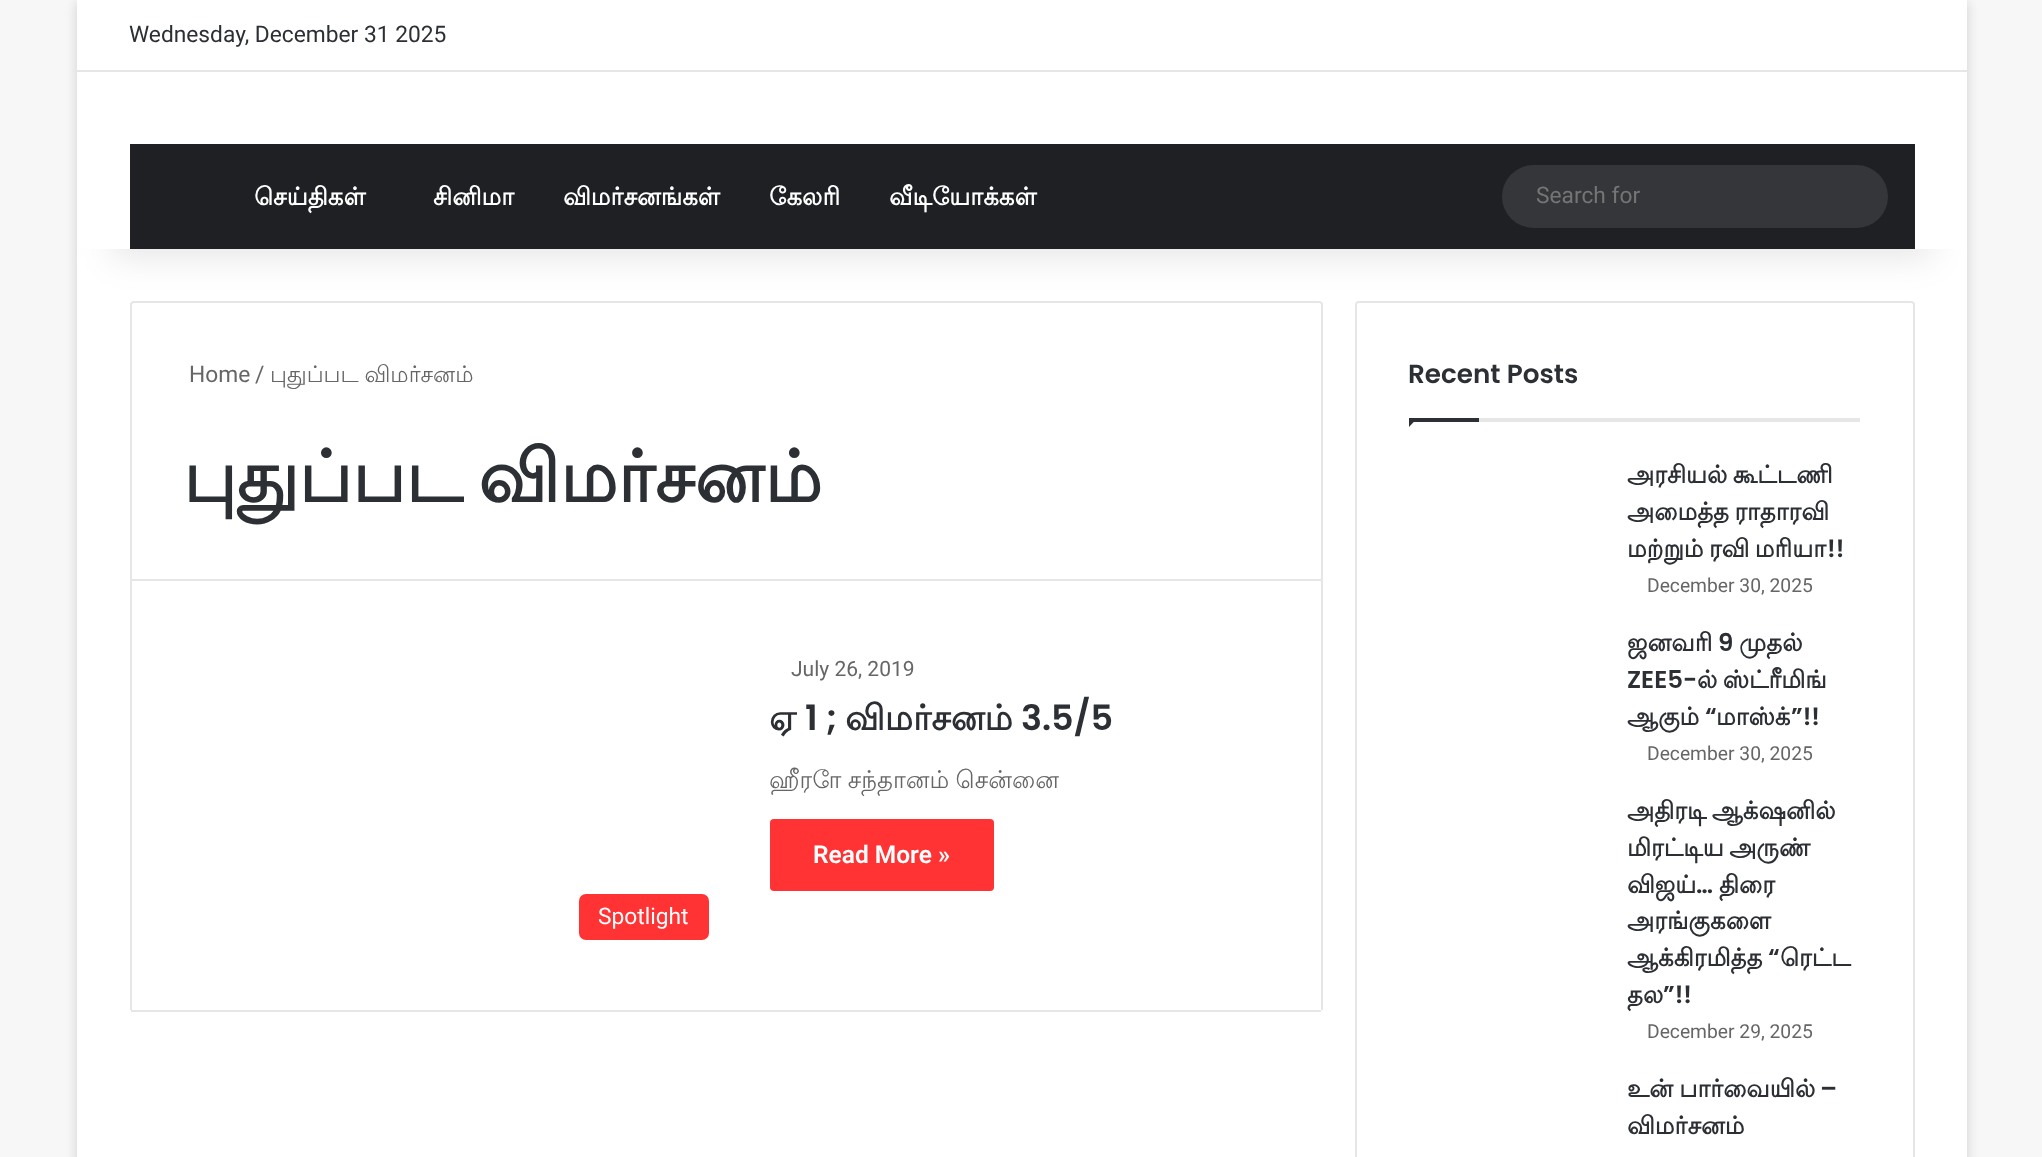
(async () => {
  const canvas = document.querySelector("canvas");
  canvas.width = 2042;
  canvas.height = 1157;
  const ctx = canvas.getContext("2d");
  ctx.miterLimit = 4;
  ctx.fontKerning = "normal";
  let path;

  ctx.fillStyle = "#f7f7f7";
  ctx.fillRect(0, 0, 2042, 1157);
  ctx.fillStyle = "rgba(171, 171, 171, 0.5)";
  ctx.filter = "blur(6px)";
  ctx.beginPath();
  ctx.rect(77, 2, 1890, 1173);
  ctx.fill();
  ctx.filter = "none";
  ctx.fillStyle = "#ffffff";
  ctx.fillRect(77, 249, 1890, 908);
  ctx.beginPath();
  ctx.roundRect(131, 302, 1191, 278, [3, 3, 0, 0]);
  ctx.strokeStyle = "#e6e6e6";
  ctx.lineWidth = 2;
  ctx.stroke();
  ctx.beginPath();
  ctx.roundRect(1356, 302, 558, 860, 3);
  ctx.stroke();
  ctx.fillStyle = "rgba(0, 0, 0, 0.1)";
  ctx.filter = "blur(17.5px)";
  ctx.beginPath();
  ctx.rect(112, 79, 1820, 178);
  ctx.fill();
  ctx.filter = "none";
  for (const [x, y, w, h, color] of [
    [77, 0, 1890, 249, "#ffffff"],
    [77, 70, 1890, 2, "#e6e6e6"],
    [130, 144, 1785, 105, "#1f2024"],
  ]) {
    ctx.fillStyle = color;
    ctx.fillRect(x, y, w, h);
  }
  ctx.fillStyle = "#35363a";
  ctx.beginPath();
  ctx.roundRect(1502, 165, 386, 63, 31.5);
  ctx.fill();
  for (const [x, y, w, h, color] of [
    [1321, 581, 2, 429, "#e6e6e6"],
    [131, 1010, 1190, 2, "#e6e6e6"],
    [130, 581, 2, 429, "#e6e6e6"],
  ]) {
    ctx.fillStyle = color;
    ctx.fillRect(x, y, w, h);
  }
  ctx.fillStyle = "#ff3333";
  ctx.beginPath();
  ctx.roundRect(770, 819, 224, 72, 4);
  ctx.fill();
  ctx.beginPath();
  ctx.roundRect(579, 894, 130, 46, 7);
  ctx.fill();
  ctx.fillStyle = "#e6e6e6";
  ctx.fillRect(1479, 418, 381, 4);
  ctx.fillStyle = "#2c2f34";
  path = new Path2D("M1409 418H1417.5L1409 427Z");
  ctx.fill(path);
  ctx.fillRect(1409, 418, 70, 4);
  ctx.font = "22.75px Roboto";
  ctx.fillText("Wednesday, December 31 2025", 129, 42);
  ctx.font = "bold 24.5px Lohit Tamil";
  ctx.fillStyle = "#ffffff";
  for (const [text, x, y] of [
    ["செய்திகள்", 254, 205],
    ["சினிமா", 433, 205],
    ["விமர்சனங்கள்", 563, 205],
    ["கேலரி", 769, 205],
    ["வீடியோக்கள்", 889, 205],
  ]) {
    ctx.fillText(text, x, y);
  }
  ctx.font = "22.75px Roboto";
  ctx.fillStyle = "#757575";
  ctx.fillText("Search for", 1536, 203);
  ctx.fillStyle = "#666666";
  ctx.fillText("Home", 189, 382);
  ctx.fillText("/", 255, 382);
  ctx.wordSpacing = "-1px";
  ctx.font = "22.75px Lohit Tamil";
  ctx.fillText("புதுப்பட விமர்சனம்", 270, 382);
  ctx.wordSpacing = "-6px";
  ctx.font = "bold 71.75px Lohit Tamil";
  ctx.fillStyle = "#2c2f34";
  ctx.fillText("புதுப்பட விமர்சனம்", 183, 502);
  ctx.wordSpacing = "0px";
  ctx.font = "21px Roboto";
  ctx.fillStyle = "#666666";
  ctx.fillText("July 26, 2019", 791, 676);
  ctx.font = "bold 35px Lohit Tamil";
  ctx.fillStyle = "#2c2f34";
  ctx.fillText("ஏ", 769, 730);
  ctx.font = "600 35px Poppins";
  ctx.fillText("1 ;", 805, 730);
  ctx.font = "bold 35px Lohit Tamil";
  ctx.fillText("விமர்சனம்", 845, 730);
  ctx.font = "600 35px Poppins";
  ctx.fillText("3.5/5", 1021, 730);
  ctx.wordSpacing = "-1px";
  ctx.font = "24.5px Lohit Tamil";
  ctx.fillStyle = "#666666";
  ctx.fillText("ஹீரோ சந்தானம் சென்னை", 769, 788);
  ctx.wordSpacing = "0px";
  ctx.font = "600 24.5px Roboto";
  ctx.fillStyle = "#ffffff";
  ctx.fillText("Read More »", 813, 863);
  ctx.font = "22.75px Roboto";
  ctx.fillText("Spotlight", 598, 924);
  ctx.font = "600 26.25px Poppins";
  ctx.fillStyle = "#2c2f34";
  ctx.fillText("Recent Posts", 1408, 383);
  ctx.wordSpacing = "-2px";
  ctx.font = "bold 24.5px Lohit Tamil";
  for (const [text, x, y] of [
    ["அரசியல் கூட்டணி", 1627, 483],
    ["அமைத்த ராதாரவி", 1627, 520],
    ["மற்றும் ரவி மரியா", 1627, 557],
  ]) {
    ctx.fillText(text, x, y);
  }
  ctx.wordSpacing = "0px";
  ctx.font = "600 24.5px Poppins";
  ctx.fillText("!!", 1827, 557);
  ctx.font = "19.25px Roboto";
  ctx.fillStyle = "#666666";
  ctx.fillText("December 30, 2025", 1647, 592);
  ctx.font = "bold 24.5px Lohit Tamil";
  ctx.fillStyle = "#2c2f34";
  ctx.fillText("ஜனவரி", 1627, 651);
  ctx.font = "600 24.5px Poppins";
  ctx.fillText("9", 1718, 651);
  ctx.font = "bold 24.5px Lohit Tamil";
  ctx.fillText("முதல்", 1739, 651);
  ctx.font = "600 24.5px Poppins";
  ctx.fillText("ZEE5-", 1627, 688);
  ctx.wordSpacing = "-2px";
  ctx.font = "bold 24.5px Lohit Tamil";
  ctx.fillText("ல் ஸ்ட்ரீமிங்", 1697, 688);
  ctx.wordSpacing = "0px";
  ctx.fillText("ஆகும்", 1627, 725);
  ctx.font = "600 24.5px Poppins";
  ctx.fillText("“", 1705, 725);
  ctx.font = "bold 24.5px Lohit Tamil";
  ctx.fillText("மாஸ்க்", 1716, 725);
  ctx.font = "600 24.5px Poppins";
  ctx.fillText("”!!", 1791, 725);
  ctx.font = "19.25px Roboto";
  ctx.fillStyle = "#666666";
  ctx.fillText("December 30, 2025", 1647, 760);
  ctx.wordSpacing = "-2px";
  ctx.font = "bold 24.5px Lohit Tamil";
  ctx.fillStyle = "#2c2f34";
  ctx.fillText("அதிரடி ஆக்‌ஷனில்", 1627, 819);
  ctx.fillText("மிரட்டிய அருண்", 1627, 856);
  ctx.wordSpacing = "0px";
  ctx.fillText("விஜய்", 1627, 893);
  ctx.font = "600 24.5px Poppins";
  ctx.fillText("…", 1696, 893);
  ctx.font = "bold 24.5px Lohit Tamil";
  for (const [text, x, y] of [
    ["திரை", 1719, 893],
    ["அரங்குகளை", 1627, 929],
    ["ஆக்கிரமித்த", 1627, 966],
  ]) {
    ctx.fillText(text, x, y);
  }
  ctx.font = "600 24.5px Poppins";
  ctx.fillText("“", 1768, 966);
  ctx.font = "bold 24.5px Lohit Tamil";
  ctx.fillText("ரெட்ட", 1780, 966);
  ctx.fillText("தல", 1627, 1003);
  ctx.font = "600 24.5px Poppins";
  ctx.fillText("”!!", 1663, 1003);
  ctx.font = "19.25px Roboto";
  ctx.fillStyle = "#666666";
  ctx.fillText("December 29, 2025", 1647, 1038);
  ctx.wordSpacing = "-1px";
  ctx.font = "bold 24.5px Lohit Tamil";
  ctx.fillStyle = "#2c2f34";
  ctx.fillText("உன் பார்வையில்", 1627, 1097);
  ctx.wordSpacing = "0px";
  ctx.font = "600 24.5px Poppins";
  ctx.fillText("–", 1820, 1097);
  ctx.font = "bold 24.5px Lohit Tamil";
  ctx.fillText("விமர்சனம்", 1627, 1134);
})();
